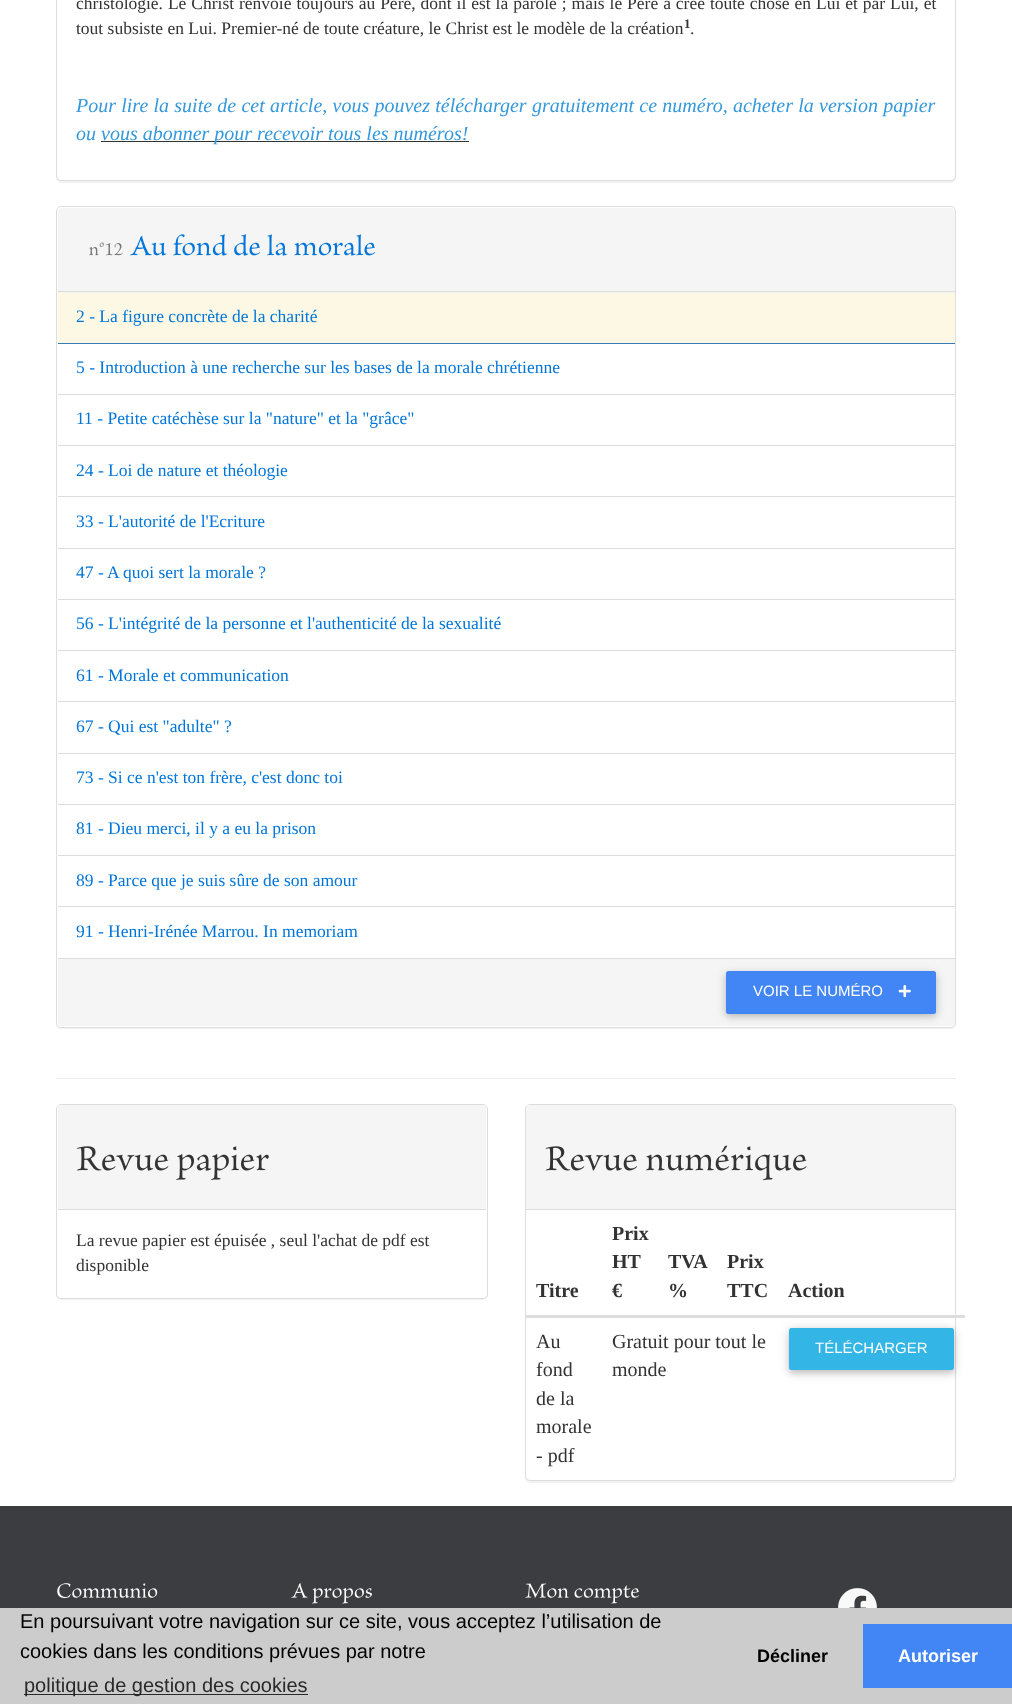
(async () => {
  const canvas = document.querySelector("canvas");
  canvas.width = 1012;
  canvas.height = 1704;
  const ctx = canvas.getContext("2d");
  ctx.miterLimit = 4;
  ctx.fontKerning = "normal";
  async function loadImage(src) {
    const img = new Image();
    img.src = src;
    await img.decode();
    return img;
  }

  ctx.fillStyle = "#ffffff";
  ctx.fillRect(0, 0, 1012, 1704);
  ctx.fillStyle = "rgba(0, 0, 0, 0.05)";
  ctx.filter = "blur(0.5px)";
  ctx.beginPath();
  ctx.roundRect(56, -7, 900, 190, 5);
  ctx.fill();
  ctx.filter = "none";
  ctx.fillStyle = "#ffffff";
  ctx.beginPath();
  ctx.roundRect(56.5, -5.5, 899, 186, 4.5);
  ctx.fill();
  ctx.strokeStyle = "#dddddd";
  ctx.stroke();
  ctx.fillStyle = "#333333";
  ctx.fillRect(101, 141, 368, 1);
  ctx.fillStyle = "rgba(0, 0, 0, 0.05)";
  ctx.filter = "blur(0.5px)";
  ctx.beginPath();
  ctx.roundRect(56, 208, 900, 821, 5);
  ctx.fill();
  ctx.filter = "none";
  ctx.fillStyle = "#ffffff";
  ctx.beginPath();
  ctx.roundRect(56.5, 206.5, 899, 821, 4.5);
  ctx.fill();
  ctx.stroke();
  ctx.fillStyle = "#f5f5f5";
  ctx.beginPath();
  ctx.roundRect(58, 208, 897, 85, [4, 4, 0, 0]);
  ctx.fill();
  ctx.fillStyle = "#dddddd";
  ctx.fillRect(58, 291, 897, 1);
  ctx.drawImage(await loadImage("img/1.png"), 89, 242, 34, 14);
  ctx.drawImage(await loadImage("img/2.png"), 129, 234, 247, 22);
  for (const [x, y, w, h, color] of [
    [58, 293, 897, 50, "#fcf8e3"],
    [58, 343, 897, 1, "#337ab7"],
    [58, 394, 897, 1, "#dddddd"],
    [58, 445, 897, 1, "#dddddd"],
    [58, 496, 897, 1, "#dddddd"],
    [58, 548, 897, 1, "#dddddd"],
    [58, 599, 897, 1, "#dddddd"],
    [58, 650, 897, 1, "#dddddd"],
    [58, 701, 897, 1, "#dddddd"],
    [58, 753, 897, 1, "#dddddd"],
    [58, 804, 897, 1, "#dddddd"],
    [58, 855, 897, 1, "#dddddd"],
    [58, 906, 897, 1, "#dddddd"],
    [58, 958, 897, 1, "#dddddd"],
  ]) {
    ctx.fillStyle = color;
    ctx.fillRect(x, y, w, h);
  }
  ctx.fillStyle = "#f5f5f5";
  ctx.beginPath();
  ctx.roundRect(58, 959, 897, 67, [0, 0, 4, 4]);
  ctx.fill();
  ctx.fillStyle = "rgba(0, 0, 0, 0.12)";
  ctx.filter = "blur(6px)";
  ctx.beginPath();
  ctx.roundRect(726, 974, 210, 42, 2.5);
  ctx.fill();
  ctx.filter = "none";
  ctx.fillStyle = "rgba(0, 0, 0, 0.16)";
  ctx.filter = "blur(3px)";
  ctx.beginPath();
  ctx.roundRect(726, 974, 210, 42, 2.5);
  ctx.fill();
  ctx.filter = "none";
  ctx.fillStyle = "#4285f4";
  ctx.beginPath();
  ctx.roundRect(726, 971, 210, 43, 2.5);
  ctx.fill();
  ctx.drawImage(await loadImage("img/3.png"), 898, 985, 13, 13);
  ctx.fillStyle = "#eeeeee";
  ctx.fillRect(56, 1078, 900, 1);
  ctx.fillStyle = "rgba(0, 0, 0, 0.05)";
  ctx.filter = "blur(0.5px)";
  ctx.beginPath();
  ctx.roundRect(56, 1105, 432, 195, 5);
  ctx.fill();
  ctx.filter = "none";
  ctx.fillStyle = "#ffffff";
  ctx.beginPath();
  ctx.roundRect(56.5, 1104.5, 431, 194, 4.5);
  ctx.fill();
  ctx.stroke();
  ctx.fillStyle = "#f5f5f5";
  ctx.beginPath();
  ctx.roundRect(58, 1105, 428, 105, [4, 4, 0, 0]);
  ctx.fill();
  ctx.fillStyle = "#dddddd";
  ctx.fillRect(58, 1209, 428, 1);
  ctx.drawImage(await loadImage("img/4.png"), 76, 1146, 193, 34);
  ctx.fillStyle = "rgba(0, 0, 0, 0.05)";
  ctx.filter = "blur(0.5px)";
  ctx.beginPath();
  ctx.roundRect(525, 1105, 431, 378, 5);
  ctx.fill();
  ctx.filter = "none";
  ctx.fillStyle = "#ffffff";
  ctx.beginPath();
  ctx.roundRect(525.5, 1104.5, 430, 376, 4.5);
  ctx.fill();
  ctx.stroke();
  ctx.fillStyle = "#f5f5f5";
  ctx.beginPath();
  ctx.roundRect(526, 1105, 429, 105, [4, 4, 0, 0]);
  ctx.fill();
  ctx.fillStyle = "#dddddd";
  ctx.fillRect(526, 1209, 429, 1);
  ctx.drawImage(await loadImage("img/5.png"), 545, 1145, 262, 36);
  ctx.fillRect(525, 1315, 440, 3);
  ctx.fillStyle = "rgba(0, 0, 0, 0.12)";
  ctx.filter = "blur(6px)";
  ctx.beginPath();
  ctx.roundRect(789, 1330, 165, 43, 2.5);
  ctx.fill();
  ctx.filter = "none";
  ctx.fillStyle = "rgba(0, 0, 0, 0.16)";
  ctx.filter = "blur(3px)";
  ctx.beginPath();
  ctx.roundRect(789, 1330, 165, 43, 2.5);
  ctx.fill();
  ctx.filter = "none";
  ctx.fillStyle = "#33b5e5";
  ctx.beginPath();
  ctx.roundRect(789, 1328, 165, 42, 2.5);
  ctx.fill();
  ctx.fillStyle = "#3c3d41";
  ctx.fillRect(0, 1506, 1012, 102);
  ctx.drawImage(await loadImage("img/6.png"), 57, 1583, 101, 15);
  ctx.drawImage(await loadImage("img/7.png"), 291, 1583, 81, 21);
  ctx.drawImage(await loadImage("img/8.png"), 525, 1583, 115, 21);
  ctx.drawImage(await loadImage("img/9.png"), 838, 1588, 39, 20);
  for (const [x, y, w, h, color] of [
    [0, 1608, 1012, 96, "#cccccc"],
    [24, 1694, 284, 1, "#292929"],
    [863, 1624, 149, 64, "#4285f4"],
  ]) {
    ctx.fillStyle = color;
    ctx.fillRect(x, y, w, h);
  }
  ctx.wordSpacing = "0.55px";
  ctx.font = "17.5px Liberation Serif";
  ctx.fillStyle = "#333333";
  ctx.fillText("christologie. Le Christ renvoie toujours au Père, dont il est la parole ; mais le Père a créé toute chose en Lui et par Lui, et", 76, 9);
  ctx.wordSpacing = "0px";
  ctx.fillText("tout subsiste en Lui. Premier-né de toute créature, le Christ est le modèle de la création", 76, 34);
  ctx.font = "bold 13px Liberation Serif";
  ctx.fillText("1", 684, 28);
  ctx.font = "17.5px Liberation Serif";
  ctx.fillText(".", 690, 34);
  ctx.wordSpacing = "0.25px";
  ctx.font = "italic 20px Liberation Serif";
  ctx.fillStyle = "#3498db";
  ctx.fillText("Pour lire la suite de cet article, vous pouvez télécharger gratuitement ce numéro, acheter la version papier", 76, 112);
  ctx.wordSpacing = "0px";
  ctx.fillText("ou", 76, 140);
  ctx.fillText("vous abonner pour recevoir tous les numéros!", 101, 140);
  ctx.font = "17.5px Liberation Serif";
  ctx.fillStyle = "#0275d8";
  for (const [text, x, y] of [
    ["2 - La figure concrète de la charité", 76, 322],
    ["5 - Introduction à une recherche sur les bases de la morale chrétienne", 76, 373],
    ["11 - Petite catéchèse sur la \"nature\" et la \"grâce\"", 76, 424],
    ["24 - Loi de nature et théologie", 76, 476],
    ["33 - L'autorité de l'Ecriture", 76, 527],
    ["47 -", 76, 578],
    ["A quoi sert la morale ?", 107, 578],
    ["56 - L'intégrité de la personne et l'authenticité de la sexualité", 76, 629],
    ["61 - Morale et communication", 76, 681],
    ["67 - Qui est \"adulte\" ?", 76, 732],
    ["73 - Si ce n'est ton frère, c'est donc toi", 76, 783],
    ["81 - Dieu merci, il y a eu la prison", 76, 834],
    ["89 - Parce que je suis sûre de son amour", 76, 886],
    ["91 - Henri-Irénée Marrou. In memoriam", 76, 937],
  ]) {
    ctx.fillText(text, x, y);
  }
  ctx.font = "15px Liberation Sans";
  ctx.fillStyle = "#ffffff";
  ctx.fillText("VOIR LE NUMÉRO", 753, 996);
  ctx.font = "17.5px Liberation Serif";
  ctx.fillStyle = "#333333";
  ctx.fillText("La revue papier est épuisée , seul l'achat de pdf est", 76, 1246);
  ctx.fillText("disponible", 76, 1271);
  ctx.font = "bold 20px Liberation Serif";
  for (const [text, x, y] of [
    ["Titre", 536, 1297],
    ["Prix", 612, 1240],
    ["HT", 612, 1268],
    ["€", 612, 1297],
    ["TVA", 668, 1268],
    ["%", 668, 1297],
    ["Prix", 727, 1268],
    ["TTC", 727, 1297],
    ["Action", 788, 1297],
  ]) {
    ctx.fillText(text, x, y);
  }
  ctx.font = "20px Liberation Serif";
  for (const [text, x, y] of [
    ["Au", 536, 1348],
    ["fond", 536, 1376],
    ["de la", 536, 1405],
    ["morale", 536, 1433],
    ["- pdf", 536, 1462],
    ["Gratuit pour tout le", 612, 1348],
    ["monde", 612, 1376],
  ]) {
    ctx.fillText(text, x, y);
  }
  ctx.font = "15px Liberation Sans";
  ctx.fillStyle = "#ffffff";
  ctx.fillText("TÉLÉCHARGER", 815, 1353);
  ctx.font = "20px Liberation Sans";
  ctx.fillStyle = "#000000";
  ctx.fillText("En poursuivant votre navigation sur ce site, vous acceptez l’utilisation de", 20, 1628);
  ctx.fillText("cookies dans les conditions prévues par notre", 20, 1658);
  ctx.fillStyle = "#292929";
  ctx.fillText("politique de gestion des cookies", 24, 1692);
  ctx.font = "bold 18px Liberation Sans";
  ctx.fillStyle = "#000000";
  ctx.fillText("Décliner", 757, 1662);
  ctx.fillStyle = "#ffffff";
  ctx.fillText("Autoriser", 898, 1662);
})();
